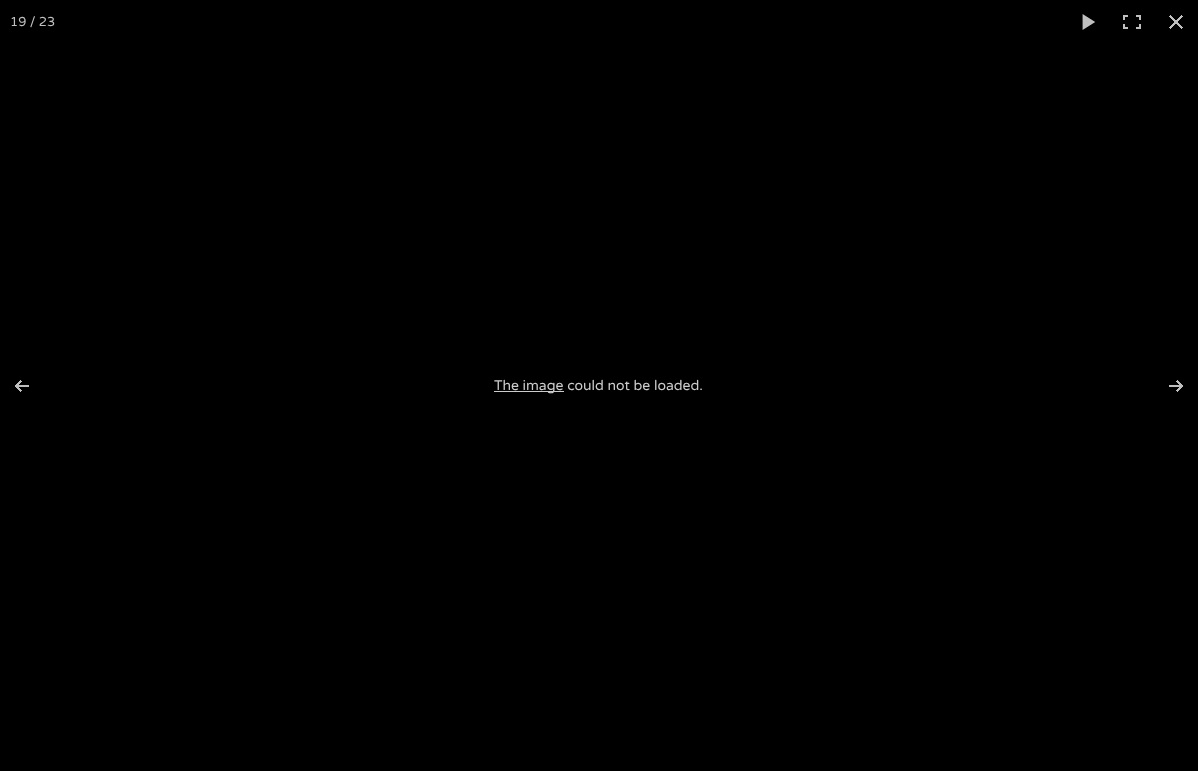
(async () => {
  const canvas = document.querySelector("canvas");
  canvas.width = 1198;
  canvas.height = 771;
  const ctx = canvas.getContext("2d");
  ctx.miterLimit = 4;
  ctx.fontKerning = "normal";
  async function loadImage(src) {
    const img = new Image();
    img.src = src;
    await img.decode();
    return img;
  }

  ctx.fillStyle = "#000000";
  ctx.fillRect(0, 0, 1198, 771);
  ctx.drawImage(await loadImage("img/1.png"), 1082, 14, 13, 16);
  ctx.drawImage(await loadImage("img/2.png"), 1123, 15, 18, 14);
  ctx.drawImage(await loadImage("img/3.png"), 1169, 15, 14, 14);
  ctx.drawImage(await loadImage("img/4.png"), 15, 380, 14, 12);
  ctx.drawImage(await loadImage("img/5.png"), 1169, 380, 14, 12);
  ctx.fillStyle = "#cccccc";
  ctx.fillRect(494, 391, 70, 1);
  ctx.font = "13px Varela Round";
  ctx.fillStyle = "#bfbfbf";
  ctx.fillText("19 / 23", 10, 26);
  ctx.font = "14px Varela Round";
  ctx.fillStyle = "#cccccc";
  ctx.fillText("The image could not be loaded.", 494, 390);
})();
